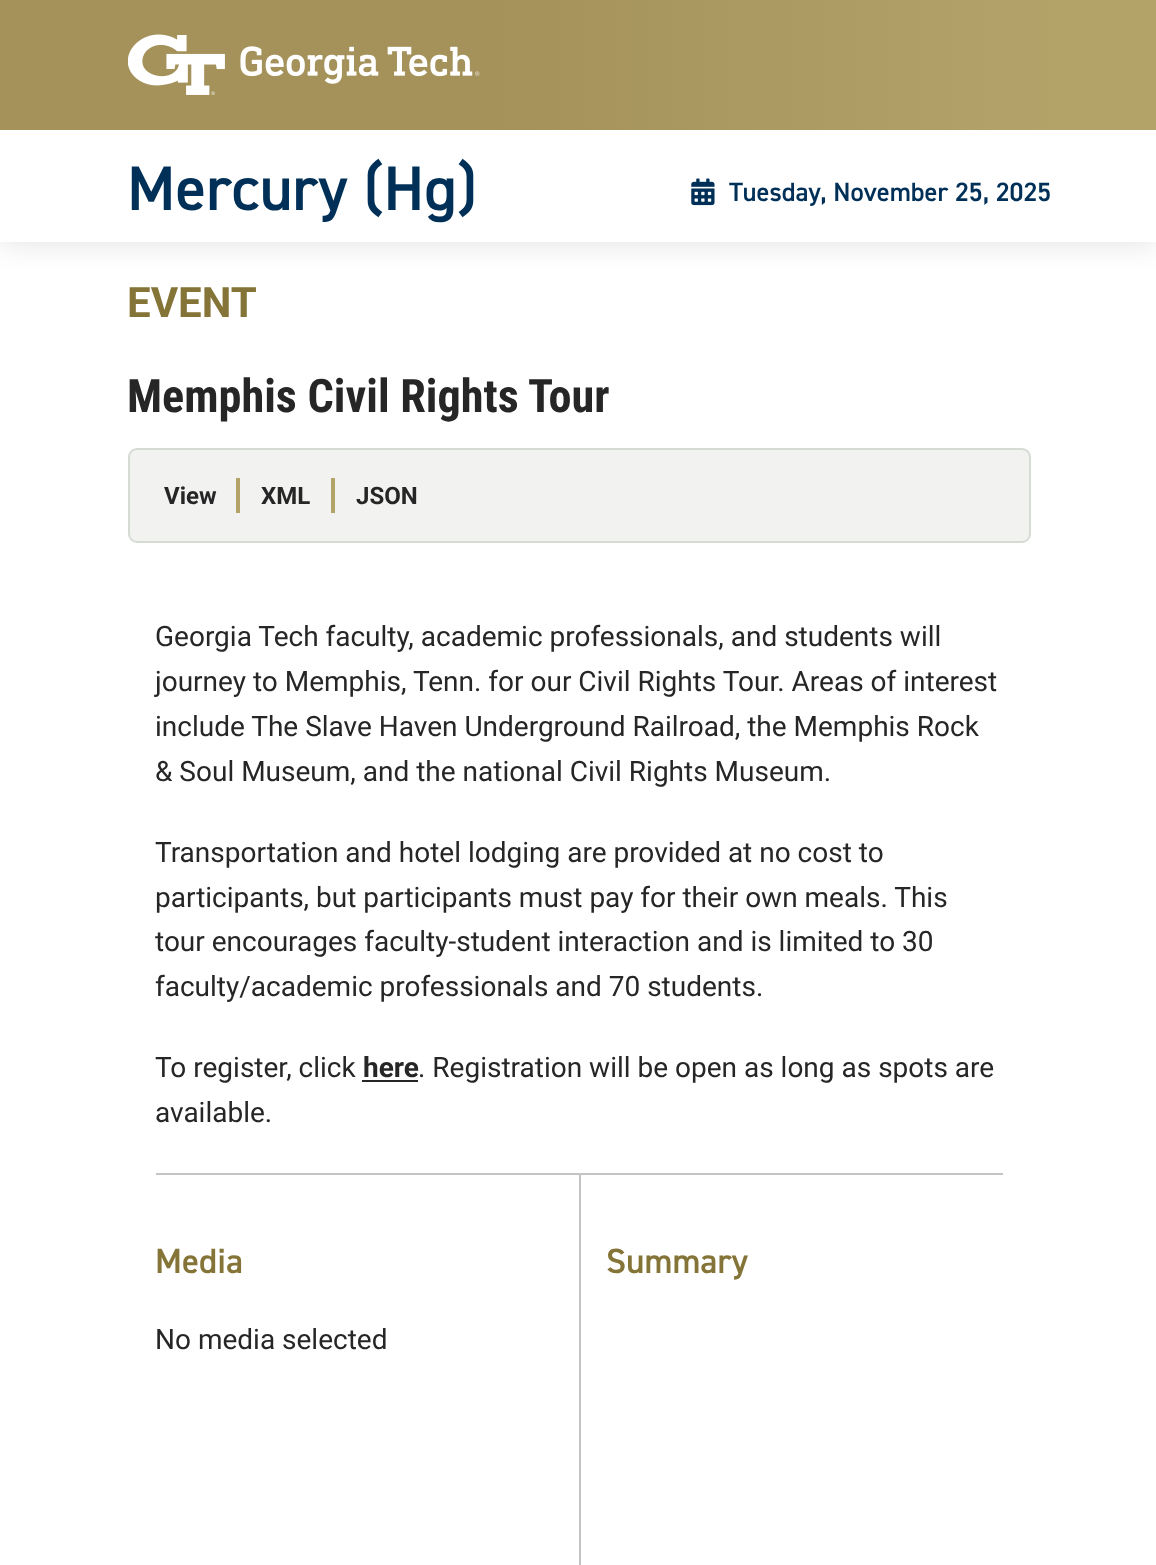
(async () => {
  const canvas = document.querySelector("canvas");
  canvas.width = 1156;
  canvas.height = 1565;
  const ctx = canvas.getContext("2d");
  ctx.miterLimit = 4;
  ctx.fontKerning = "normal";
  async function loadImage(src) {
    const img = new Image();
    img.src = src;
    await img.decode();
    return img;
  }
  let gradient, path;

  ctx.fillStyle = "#ffffff";
  ctx.fillRect(0, 0, 1156, 1565);
  ctx.save();
  path = new Path2D("M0 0H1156V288H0ZM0 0H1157V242H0Z");
  ctx.clip(path, "evenodd");
  ctx.fillStyle = "rgba(0, 0, 0, 0.1)";
  ctx.filter = "blur(14px)";
  ctx.beginPath();
  ctx.rect(0, 4, 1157, 241);
  ctx.fill();
  ctx.filter = "none";
  ctx.restore();
  ctx.fillStyle = "#a4925a";
  ctx.fillRect(0, 0, 501, 130);
  ctx.fillStyle = "#b3a369";
  ctx.fillRect(1052, 0, 104, 130);
  ctx.drawImage(await loadImage("img/1.png"), 128, 34, 352, 61);
  gradient = ctx.createLinearGradient(501, 65, 1052, 65);
  gradient.addColorStop(0, "#a4925a");
  gradient.addColorStop(1, "#b3a369");
  ctx.fillStyle = gradient;
  ctx.fillRect(501, 0, 551, 130);
  ctx.drawImage(await loadImage("img/2.png"), 691, 178, 24, 28);
  ctx.fillStyle = "#f2f3f1";
  ctx.beginPath();
  ctx.roundRect(129, 449, 901, 93, 8);
  ctx.fill();
  ctx.strokeStyle = "#d6dbd4";
  ctx.lineWidth = 2;
  ctx.stroke();
  for (const [x, y, w, h, color] of [
    [236, 478, 4, 35, "#b3a369"],
    [331, 478, 4, 35, "#b3a369"],
    [362, 1080, 56, 2, "#262626"],
    [156, 1173, 847, 2, "#c4c4c4"],
    [579, 1174, 2, 391, "#c4c4c4"],
  ]) {
    ctx.fillStyle = color;
    ctx.fillRect(x, y, w, h);
  }
  ctx.font = "600 63px 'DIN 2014'";
  ctx.fillStyle = "#003057";
  ctx.fillText("Mercury (Hg)", 127, 210);
  ctx.font = "600 26.6px 'DIN 2014'";
  ctx.fillText("Tuesday, November 25, 2025", 729, 201);
  ctx.font = "bold 42px Roboto";
  ctx.fillStyle = "#857437";
  ctx.fillText("EVENT", 127, 317);
  ctx.font = "bold 46.25px Roboto Condensed";
  ctx.fillStyle = "#262626";
  ctx.fillText("Memphis Civil Rights Tour", 127, 412);
  ctx.font = "bold 24px Roboto";
  for (const [text, x, y] of [
    ["View", 164, 504],
    ["XML", 261, 504],
    ["JSON", 356, 504],
  ]) {
    ctx.fillText(text, x, y);
  }
  ctx.font = "28px Roboto";
  for (const [text, x, y] of [
    ["Georgia Tech faculty, academic professionals, and students will", 155, 646],
    ["journey to Memphis, Tenn. for our Civil Rights Tour. Areas of interest", 155, 691],
    ["include The Slave Haven Underground Railroad, the Memphis Rock", 155, 736],
    ["& Soul Museum, and the national Civil Rights Museum.", 155, 781],
    ["Transportation and hotel lodging are provided at no cost to", 155, 862],
    ["participants, but participants must pay for their own meals. This", 155, 907],
    ["tour encourages faculty-student interaction and is limited to 30", 155, 951],
    ["faculty/academic professionals and 70 students.", 155, 996],
    ["To register, click", 155, 1077],
  ]) {
    ctx.fillText(text, x, y);
  }
  ctx.font = "bold 28px Roboto";
  ctx.fillText("here", 363, 1077);
  ctx.font = "28px Roboto";
  ctx.fillText(". Registration will be open as long as spots are", 418, 1077);
  ctx.fillText("available.", 155, 1122);
  ctx.font = "600 35px 'DIN 2014'";
  ctx.fillStyle = "#857437";
  ctx.fillText("Media", 155, 1273);
  ctx.font = "28px Roboto";
  ctx.fillStyle = "#262626";
  ctx.fillText("No media selected", 155, 1349);
  ctx.font = "600 35px 'DIN 2014'";
  ctx.fillStyle = "#857437";
  ctx.fillText("Summary", 606, 1273);
})();
